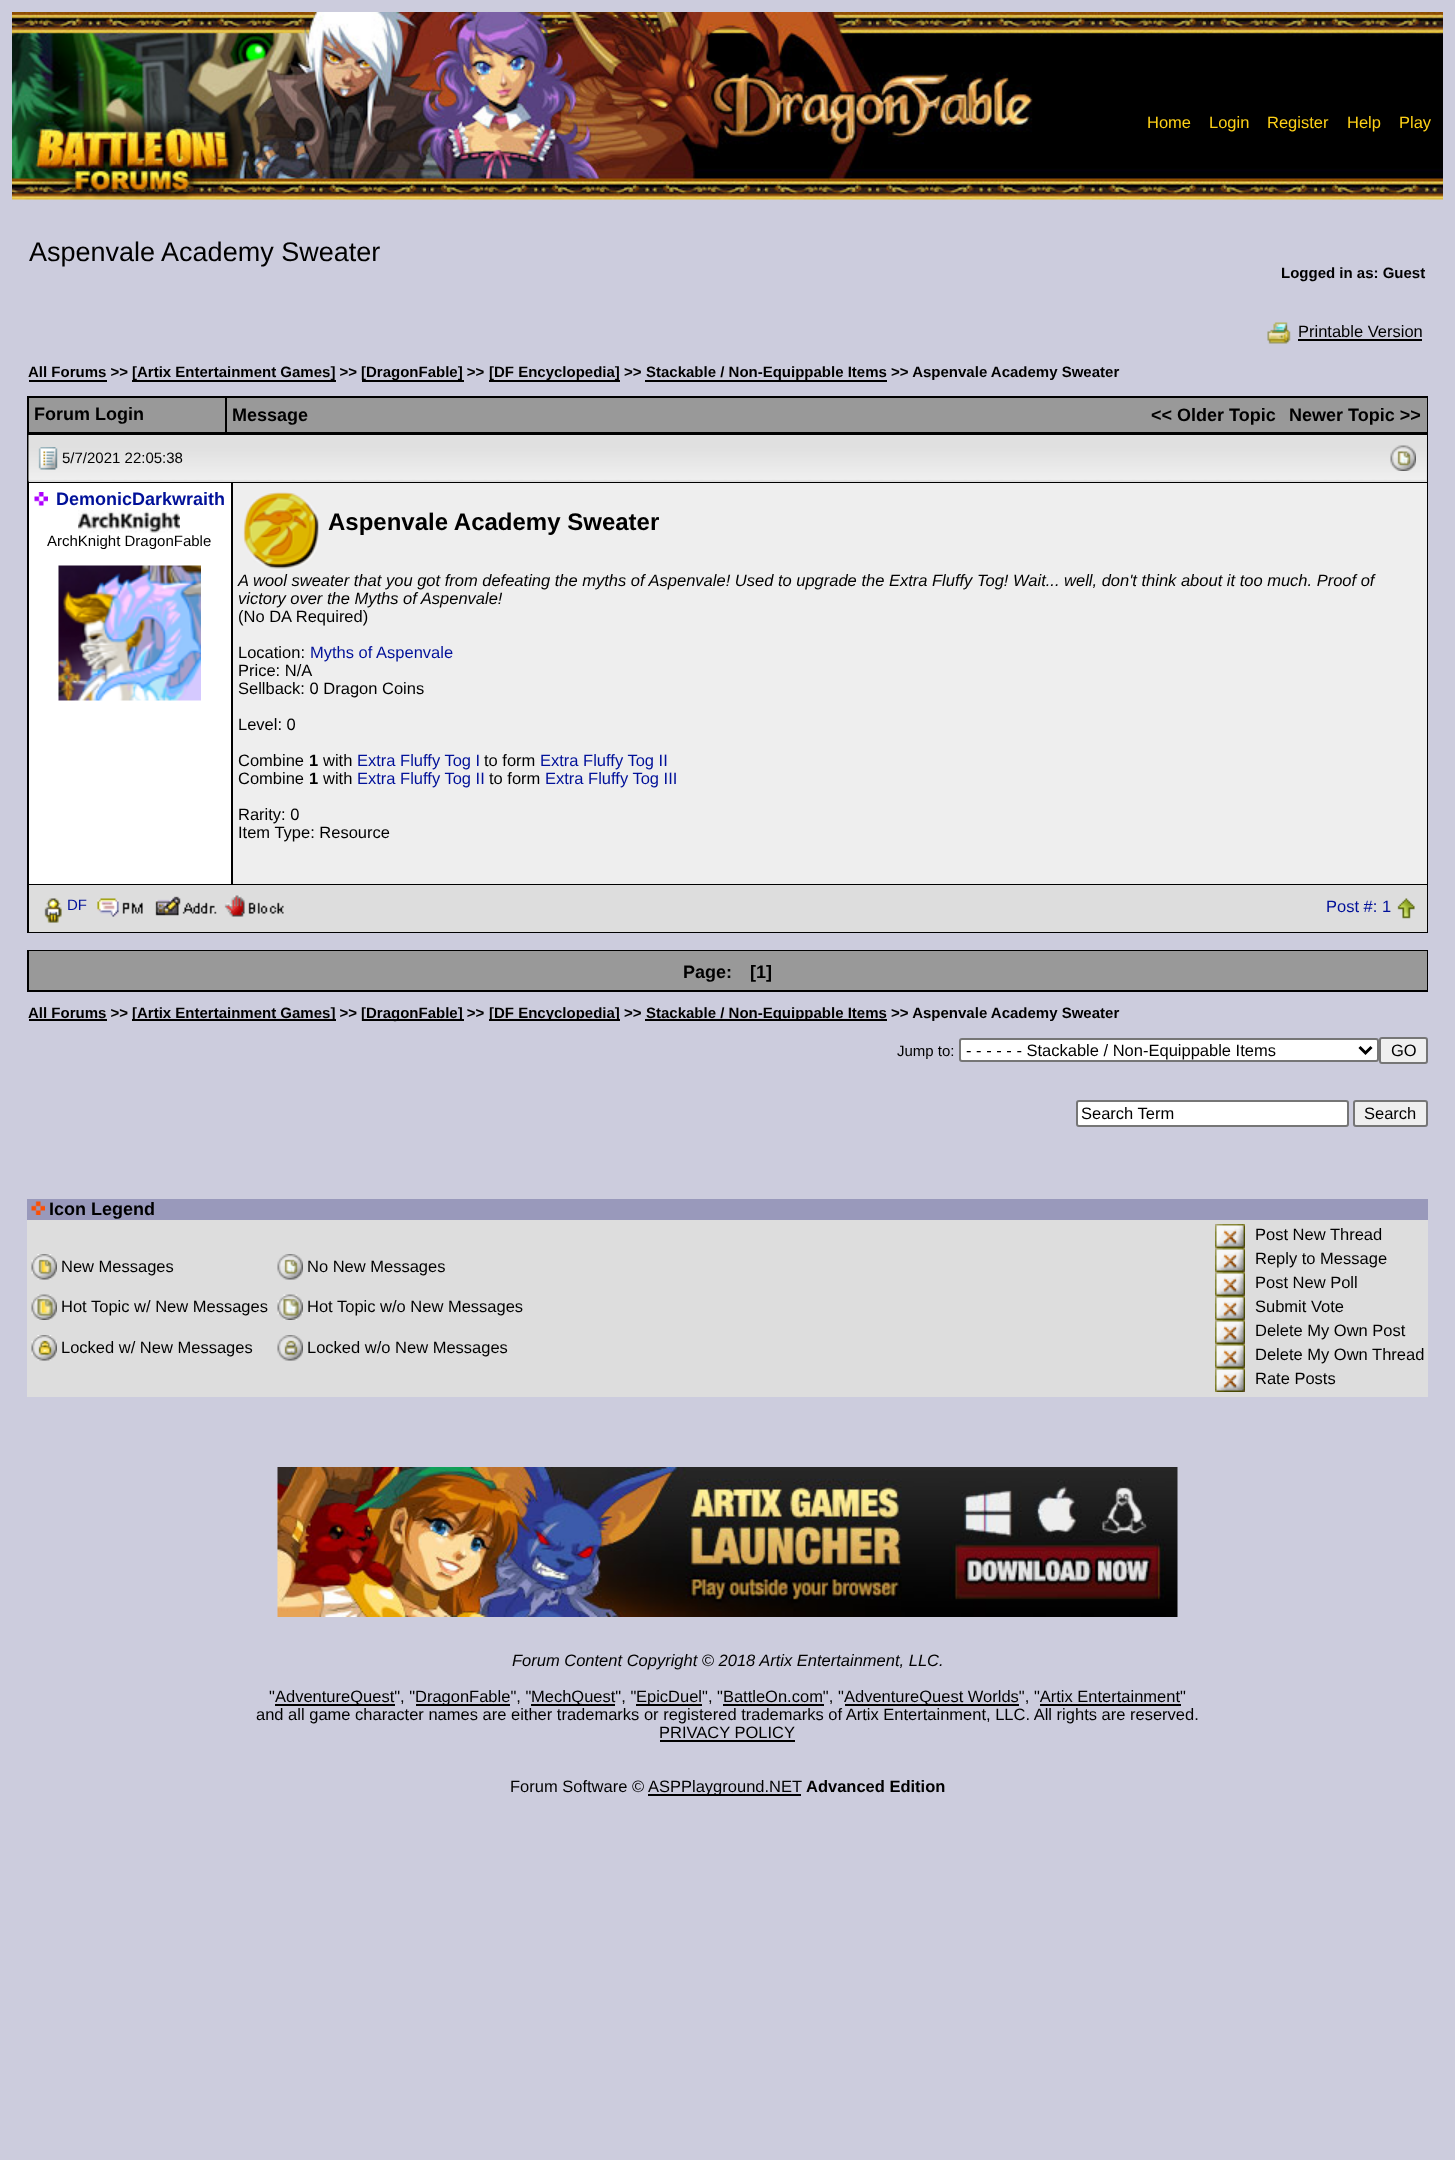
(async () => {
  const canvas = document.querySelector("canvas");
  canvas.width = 1455;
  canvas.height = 2160;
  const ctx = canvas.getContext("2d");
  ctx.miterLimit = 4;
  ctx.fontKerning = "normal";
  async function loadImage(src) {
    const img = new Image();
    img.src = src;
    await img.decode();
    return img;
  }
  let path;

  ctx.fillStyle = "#ccccdd";
  ctx.fillRect(0, 0, 1455, 2160);
  ctx.drawImage(await loadImage("img/1.png"), 12, 12, 1431, 188);
  ctx.drawImage(await loadImage("img/2.png"), 1267, 322, 24, 22);
  for (const [x, y, w, h, color] of [
    [1298, 339, 124, 2, "#000000"],
    [29, 380, 78, 2, "#000000"],
    [132, 380, 204, 2, "#000000"],
    [362, 380, 102, 2, "#000000"],
    [489, 380, 131, 2, "#000000"],
    [645, 380, 242, 2, "#000000"],
    [27, 396, 1401, 537, "#000000"],
    [29, 398, 196, 34, "#999999"],
    [227, 398, 1200, 34, "#999999"],
    [29, 435, 1398, 47, "#dddddd"],
  ]) {
    ctx.fillStyle = color;
    ctx.fillRect(x, y, w, h);
  }
  ctx.drawImage(await loadImage("img/3.png"), 28, 435, 1399, 47);
  ctx.drawImage(await loadImage("img/4.png"), 38, 447, 20, 23);
  ctx.drawImage(await loadImage("img/5.png"), 1390, 445, 26, 26);
  ctx.fillStyle = "#ffffff";
  ctx.fillRect(29, 483, 202, 401);
  ctx.drawImage(await loadImage("img/6.png"), 34, 492, 14, 14);
  ctx.drawImage(await loadImage("img/7.png"), 78, 510, 102, 23);
  ctx.drawImage(await loadImage("img/8.png"), 58, 565, 143, 136);
  ctx.fillStyle = "#eeeeee";
  ctx.fillRect(233, 483, 1194, 401);
  ctx.drawImage(await loadImage("img/9.png"), 243, 492, 76, 78);
  ctx.fillStyle = "#dddddd";
  ctx.fillRect(29, 885, 1398, 47);
  ctx.drawImage(await loadImage("img/10.png"), 44, 898, 18, 25);
  ctx.drawImage(await loadImage("img/11.png"), 97, 898, 46, 19);
  ctx.drawImage(await loadImage("img/12.png"), 155, 896, 62, 20);
  ctx.drawImage(await loadImage("img/13.png"), 224, 895, 60, 22);
  ctx.drawImage(await loadImage("img/14.png"), 1397, 898, 18, 21);
  for (const [x, y, w, h, color] of [
    [27, 950, 1401, 42, "#000000"],
    [29, 951, 1398, 39, "#999999"],
    [29, 1019, 78, 2, "#000000"],
    [132, 1019, 204, 2, "#000000"],
    [362, 1019, 102, 2, "#000000"],
    [489, 1019, 131, 2, "#000000"],
    [645, 1019, 242, 2, "#000000"],
  ]) {
    ctx.fillStyle = color;
    ctx.fillRect(x, y, w, h);
  }
  ctx.fillStyle = "#ffffff";
  ctx.beginPath();
  ctx.roundRect(960, 1039, 418, 22, 2);
  ctx.fill();
  ctx.strokeStyle = "#767676";
  ctx.lineWidth = 2;
  ctx.stroke();
  path = new Path2D("M1359.5 1047L1365.5 1053L1371.5 1047");
  ctx.strokeStyle = "#000000";
  ctx.lineWidth = 3;
  ctx.stroke(path);
  ctx.fillStyle = "#efefef";
  ctx.beginPath();
  ctx.roundRect(1380, 1038, 47, 25, 2);
  ctx.fill();
  ctx.strokeStyle = "#767676";
  ctx.lineWidth = 2;
  ctx.stroke();
  ctx.fillStyle = "#ffffff";
  ctx.beginPath();
  ctx.roundRect(1077, 1101, 271, 25, 2);
  ctx.fill();
  ctx.stroke();
  ctx.fillStyle = "#efefef";
  ctx.beginPath();
  ctx.roundRect(1354, 1101, 73, 25, 2);
  ctx.fill();
  ctx.stroke();
  ctx.fillStyle = "#9999bb";
  ctx.fillRect(27, 1199, 1401, 21);
  ctx.drawImage(await loadImage("img/15.png"), 31, 1201, 14, 14);
  ctx.fillStyle = "#dddddd";
  ctx.fillRect(27, 1220, 1401, 177);
  ctx.drawImage(await loadImage("img/16.png"), 31, 1254, 26, 26);
  ctx.drawImage(await loadImage("img/17.png"), 277, 1254, 26, 26);
  ctx.drawImage(await loadImage("img/18.png"), 31, 1294, 26, 26);
  ctx.drawImage(await loadImage("img/19.png"), 277, 1294, 26, 26);
  ctx.drawImage(await loadImage("img/20.png"), 31, 1335, 26, 26);
  ctx.drawImage(await loadImage("img/21.png"), 277, 1335, 26, 26);
  ctx.drawImage(await loadImage("img/22.png"), 1215, 1224, 30, 24);
  ctx.drawImage(await loadImage("img/22.png"), 1215, 1248, 30, 24);
  ctx.drawImage(await loadImage("img/22.png"), 1215, 1272, 30, 24);
  ctx.drawImage(await loadImage("img/22.png"), 1215, 1296, 30, 24);
  ctx.drawImage(await loadImage("img/22.png"), 1215, 1320, 30, 24);
  ctx.drawImage(await loadImage("img/22.png"), 1215, 1344, 30, 24);
  ctx.drawImage(await loadImage("img/22.png"), 1215, 1368, 30, 24);
  ctx.drawImage(await loadImage("img/23.png"), 277, 1467, 901, 150);
  for (const [x, y, w, h, color] of [
    [275, 1704, 120, 2, "#000000"],
    [416, 1704, 94, 2, "#000000"],
    [531, 1704, 84, 2, "#000000"],
    [636, 1704, 66, 2, "#000000"],
    [845, 1704, 174, 2, "#000000"],
    [723, 1704, 101, 2, "#000000"],
    [1040, 1704, 141, 2, "#000000"],
    [660, 1740, 135, 2, "#000000"],
    [648, 1794, 153, 2, "#000000"],
  ]) {
    ctx.fillStyle = color;
    ctx.fillRect(x, y, w, h);
  }
  ctx.font = "16.5px Liberation Sans";
  ctx.fillStyle = "#fdd017";
  for (const [text, x, y] of [
    ["Home", 1147, 128],
    ["Login", 1209, 128],
    ["Register", 1267, 128],
    ["Help", 1347, 128],
    ["Play", 1399, 128],
  ]) {
    ctx.fillText(text, x, y);
  }
  ctx.font = "27px Liberation Sans";
  ctx.fillStyle = "#000000";
  ctx.fillText("Aspenvale Academy Sweater", 29, 261);
  ctx.font = "bold 15px Liberation Sans";
  ctx.fillText("Logged in as: Guest", 1281, 278);
  ctx.font = "16.5px Liberation Sans";
  ctx.fillText("Printable Version", 1298, 337);
  ctx.font = "bold 15px Liberation Sans";
  for (const [text, x, y] of [
    ["All Forums >>", 28, 377],
    ["[Artix Entertainment Games] >>", 132, 377],
    ["[DragonFable] >>", 361, 377],
    ["[DF Encyclopedia] >>", 489, 377],
    ["Stackable / Non-Equippable Items >> Aspenvale Academy Sweater", 646, 377],
  ]) {
    ctx.fillText(text, x, y);
  }
  ctx.font = "bold 18px Liberation Sans";
  for (const [text, x, y] of [
    ["Forum Login", 34, 420],
    ["Message", 232, 421],
    ["<< Older Topic", 1151, 421],
    ["Newer Topic >>", 1289, 421],
  ]) {
    ctx.fillText(text, x, y);
  }
  ctx.font = "15px Liberation Sans";
  ctx.fillText("5/7/2021 22:05:38", 62, 463);
  ctx.font = "bold 18px Liberation Sans";
  ctx.fillStyle = "#001099";
  ctx.fillText("DemonicDarkwraith", 56, 505);
  ctx.font = "15px Liberation Sans";
  ctx.fillStyle = "#000000";
  ctx.fillText("ArchKnight DragonFable", 47, 546);
  ctx.font = "bold 24px Liberation Sans";
  ctx.fillText("Aspenvale Academy Sweater", 328, 530);
  ctx.font = "italic 16.5px Liberation Sans";
  ctx.fillText("A wool sweater that you got from defeating the myths of Aspenvale! Used to upgrade the Extra Fluffy Tog! Wait... well, don't think about it too much. Proof of", 238, 586);
  ctx.fillText("victory over the Myths of Aspenvale!", 238, 604);
  ctx.font = "16.5px Liberation Sans";
  ctx.fillText("(No DA Required)", 238, 622);
  ctx.fillText("Location:", 238, 658);
  ctx.fillStyle = "#001099";
  ctx.fillText("Myths of Aspenvale", 310, 658);
  ctx.fillStyle = "#000000";
  for (const [text, x, y] of [
    ["Price: N/A", 238, 676],
    ["Sellback: 0 Dragon Coins", 238, 694],
    ["Level: 0", 238, 730],
    ["Combine", 238, 766],
  ]) {
    ctx.fillText(text, x, y);
  }
  ctx.font = "bold 16.5px Liberation Sans";
  ctx.fillText("1", 309, 766);
  ctx.font = "16.5px Liberation Sans";
  ctx.fillText("with", 323, 766);
  ctx.fillStyle = "#001099";
  ctx.fillText("Extra Fluffy Tog I", 357, 766);
  ctx.fillStyle = "#000000";
  ctx.fillText("to form", 484, 766);
  ctx.fillStyle = "#001099";
  ctx.fillText("Extra Fluffy Tog II", 540, 766);
  ctx.fillStyle = "#000000";
  ctx.fillText("Combine", 238, 784);
  ctx.font = "bold 16.5px Liberation Sans";
  ctx.fillText("1", 309, 784);
  ctx.font = "16.5px Liberation Sans";
  ctx.fillText("with", 323, 784);
  ctx.fillStyle = "#001099";
  ctx.fillText("Extra Fluffy Tog II", 357, 784);
  ctx.fillStyle = "#000000";
  ctx.fillText("to form", 489, 784);
  ctx.fillStyle = "#001099";
  ctx.fillText("Extra Fluffy Tog III", 545, 784);
  ctx.fillStyle = "#000000";
  ctx.fillText("Rarity: 0", 238, 820);
  ctx.fillText("Item Type: Resource", 238, 838);
  ctx.font = "15px Liberation Sans";
  ctx.fillStyle = "#001099";
  ctx.fillText("DF", 67, 910);
  ctx.font = "16.5px Liberation Sans";
  ctx.fillText("Post #: 1", 1326, 912);
  ctx.font = "bold 18px Liberation Sans";
  ctx.fillStyle = "#000000";
  ctx.fillText("Page:", 683, 978);
  ctx.fillText("[1]", 750, 978);
  ctx.font = "bold 15px Liberation Sans";
  for (const [text, x, y] of [
    ["All Forums >>", 28, 1018],
    ["[Artix Entertainment Games] >>", 132, 1018],
    ["[DragonFable] >>", 361, 1018],
    ["[DF Encyclopedia] >>", 489, 1018],
    ["Stackable / Non-Equippable Items >> Aspenvale Academy Sweater", 646, 1018],
  ]) {
    ctx.fillText(text, x, y);
  }
  ctx.font = "15px Liberation Sans";
  ctx.fillText("Jump to:", 897, 1056);
  ctx.font = "16.5px Liberation Sans";
  for (const [text, x, y] of [
    ["- - - - - - Stackable / Non-Equippable Items", 966, 1056],
    ["GO", 1391, 1056],
    ["Search Term", 1081, 1119],
    ["Search", 1364, 1119],
  ]) {
    ctx.fillText(text, x, y);
  }
  ctx.font = "bold 18px Liberation Sans";
  ctx.fillText("Icon Legend", 49, 1215);
  ctx.font = "16.5px Liberation Sans";
  for (const [text, x, y] of [
    ["New Messages", 61, 1272],
    ["No New Messages", 307, 1272],
    ["Hot Topic w/ New Messages", 61, 1312],
    ["Hot Topic w/o New Messages", 307, 1312],
    ["Locked w/ New Messages", 61, 1353],
    ["Locked w/o New Messages", 307, 1353],
    ["Post New Thread", 1255, 1240],
    ["Reply to Message", 1255, 1264],
    ["Post New Poll", 1255, 1288],
    ["Submit Vote", 1255, 1312],
    ["Delete My Own Post", 1255, 1336],
    ["Delete My Own Thread", 1255, 1360],
    ["Rate Posts", 1255, 1384],
  ]) {
    ctx.fillText(text, x, y);
  }
  ctx.font = "italic 16.5px Liberation Sans";
  ctx.fillText("Forum Content Copyright © 2018 Artix Entertainment, LLC.", 512, 1666);
  ctx.font = "16.5px Liberation Sans";
  for (const [text, x, y] of [
    ["\"", 269, 1702],
    ["AdventureQuest\", \"", 275, 1702],
    ["DragonFable\", \"", 415, 1702],
    ["MechQuest\", \"", 531, 1702],
    ["EpicDuel\", \"BattleOn.com\", \"", 636, 1702],
    ["AdventureQuest Worlds\", \"Artix Entertainment\"", 844, 1702],
    ["and all game character names are either trademarks or registered trademarks of Artix Entertainment, LLC. All rights are reserved.", 256, 1720],
    ["PRIVACY POLICY", 659, 1738],
    ["Forum Software ©", 510, 1792],
    ["ASPPlayground.NET", 648, 1792],
  ]) {
    ctx.fillText(text, x, y);
  }
  ctx.font = "bold 16.5px Liberation Sans";
  ctx.fillText("Advanced Edition", 806, 1792);
})();
